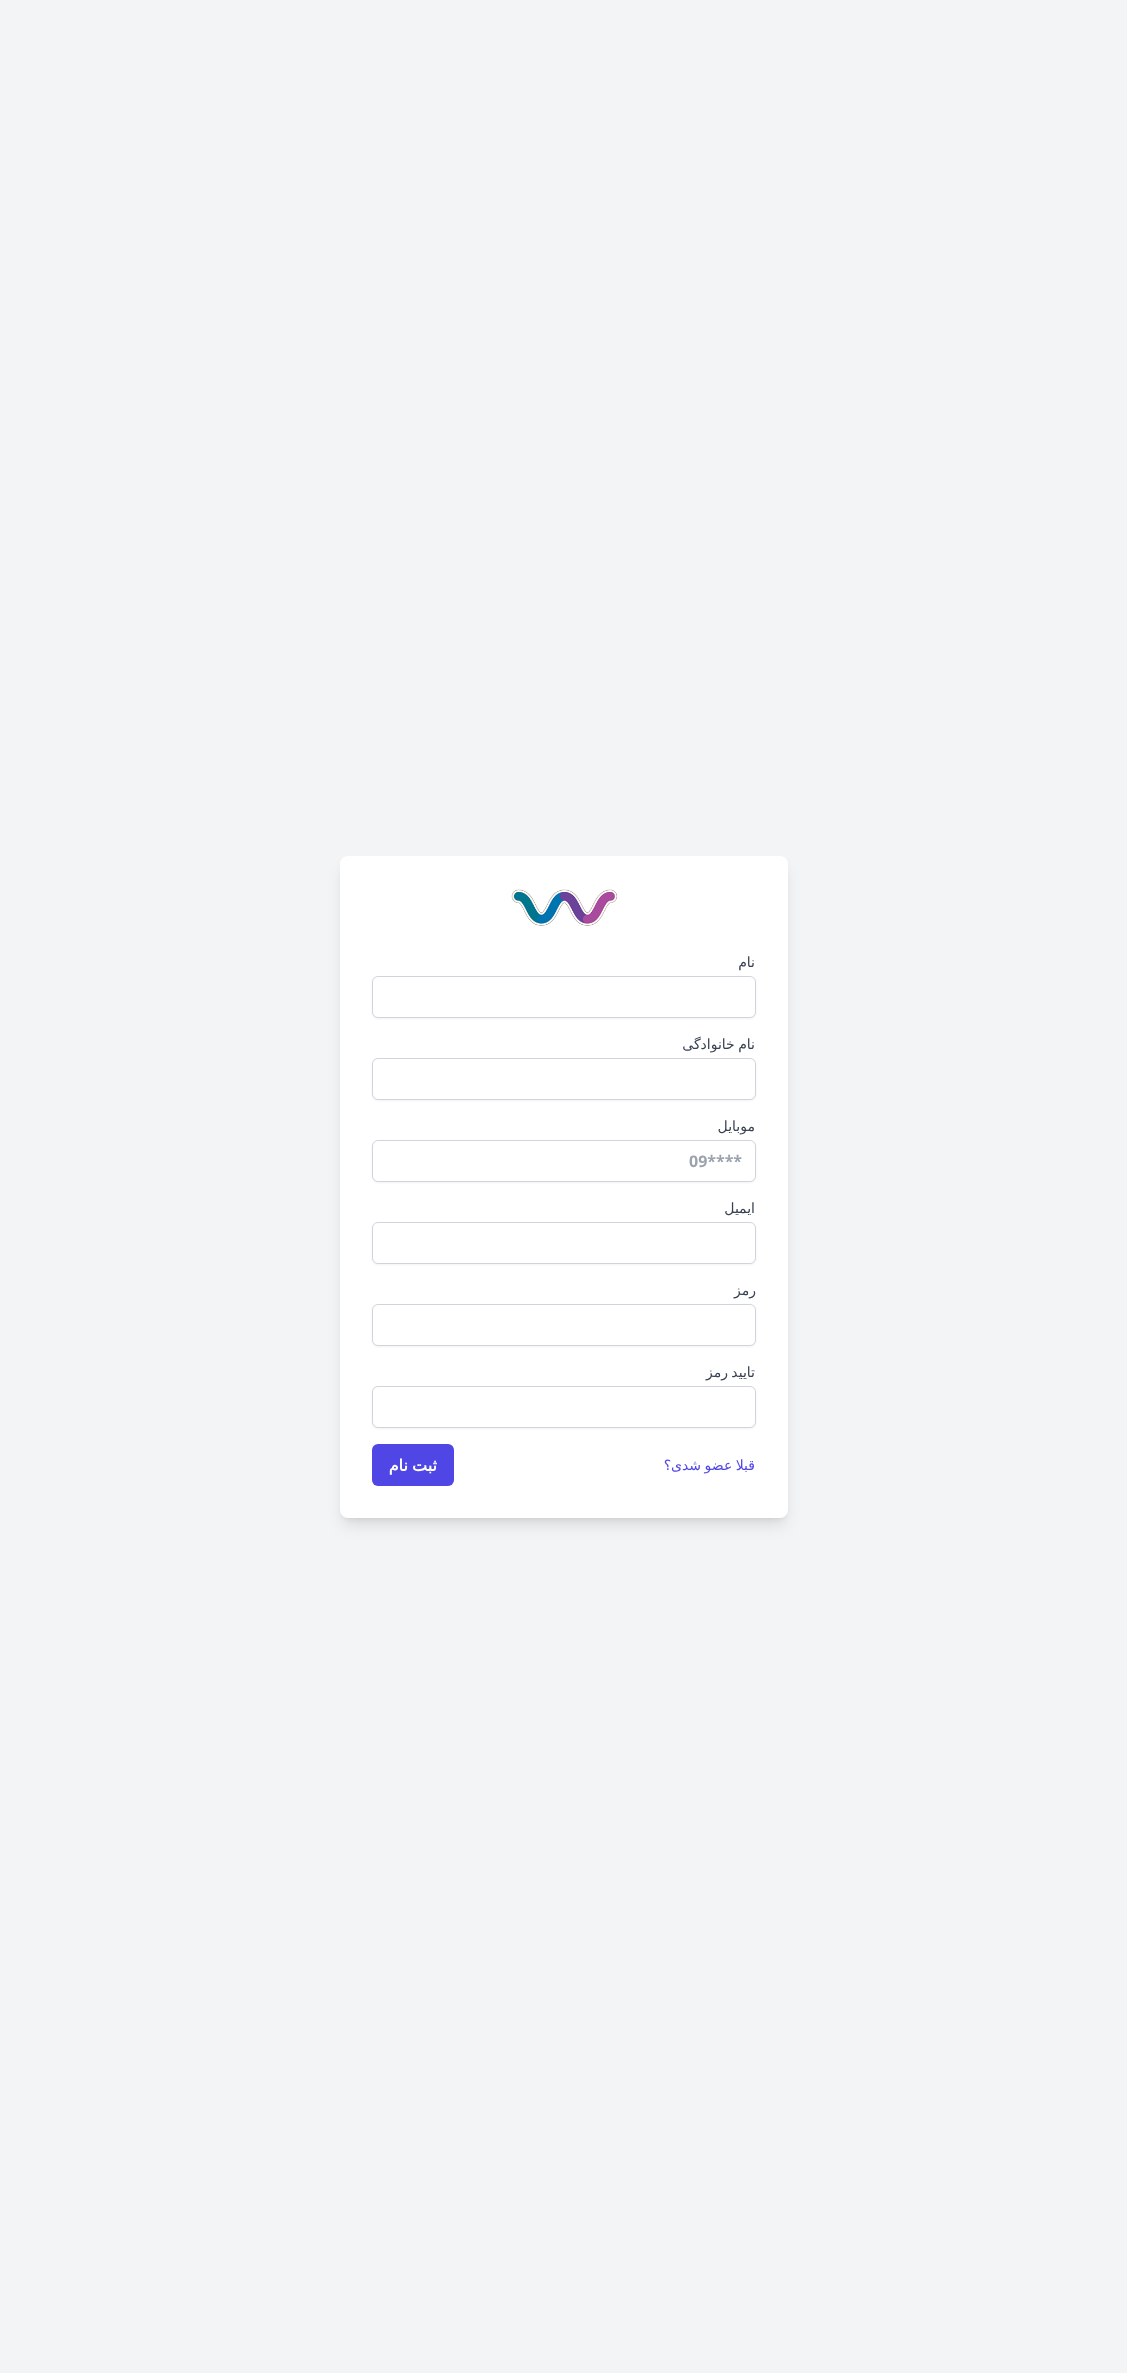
(async () => {
  const canvas = document.querySelector("canvas");
  canvas.width = 1127;
  canvas.height = 2373;
  const ctx = canvas.getContext("2d");
  ctx.miterLimit = 4;
  ctx.fontKerning = "normal";
  async function loadImage(src) {
    const img = new Image();
    img.src = src;
    await img.decode();
    return img;
  }

  ctx.fillStyle = "#f3f4f6";
  ctx.fillRect(0, 0, 1127, 2373);
  ctx.fillStyle = "rgba(0, 0, 0, 0.1)";
  ctx.filter = "blur(3px)";
  ctx.beginPath();
  ctx.roundRect(344, 864, 440, 654, 4);
  ctx.fill();
  ctx.filter = "none";
  ctx.filter = "blur(7.5px)";
  ctx.beginPath();
  ctx.roundRect(343, 869, 442, 656, 5);
  ctx.fill();
  ctx.filter = "none";
  ctx.fillStyle = "#ffffff";
  ctx.beginPath();
  ctx.roundRect(340, 856, 448, 662, 8);
  ctx.fill();
  ctx.drawImage(await loadImage("img/1.png"), 511, 889, 107, 37);
  ctx.fillStyle = "rgba(0, 0, 0, 0.05)";
  ctx.filter = "blur(1px)";
  ctx.beginPath();
  ctx.roundRect(372, 977, 384, 42, 6);
  ctx.fill();
  ctx.filter = "none";
  ctx.fillStyle = "#ffffff";
  ctx.beginPath();
  ctx.roundRect(372.5, 976.5, 383, 41, 5.5);
  ctx.fill();
  ctx.strokeStyle = "#d1d5db";
  ctx.stroke();
  ctx.fillStyle = "rgba(0, 0, 0, 0.05)";
  ctx.filter = "blur(1px)";
  ctx.beginPath();
  ctx.roundRect(372, 1059, 384, 42, 6);
  ctx.fill();
  ctx.filter = "none";
  ctx.fillStyle = "#ffffff";
  ctx.beginPath();
  ctx.roundRect(372.5, 1058.5, 383, 41, 5.5);
  ctx.fill();
  ctx.stroke();
  ctx.fillStyle = "rgba(0, 0, 0, 0.05)";
  ctx.filter = "blur(1px)";
  ctx.beginPath();
  ctx.roundRect(372, 1141, 384, 42, 6);
  ctx.fill();
  ctx.filter = "none";
  ctx.fillStyle = "#ffffff";
  ctx.beginPath();
  ctx.roundRect(372.5, 1140.5, 383, 41, 5.5);
  ctx.fill();
  ctx.stroke();
  ctx.fillStyle = "rgba(0, 0, 0, 0.05)";
  ctx.filter = "blur(1px)";
  ctx.beginPath();
  ctx.roundRect(372, 1223, 384, 42, 6);
  ctx.fill();
  ctx.filter = "none";
  ctx.fillStyle = "#ffffff";
  ctx.beginPath();
  ctx.roundRect(372.5, 1222.5, 383, 41, 5.5);
  ctx.fill();
  ctx.stroke();
  ctx.fillStyle = "rgba(0, 0, 0, 0.05)";
  ctx.filter = "blur(1px)";
  ctx.beginPath();
  ctx.roundRect(372, 1305, 384, 42, 6);
  ctx.fill();
  ctx.filter = "none";
  ctx.fillStyle = "#ffffff";
  ctx.beginPath();
  ctx.roundRect(372.5, 1304.5, 383, 41, 5.5);
  ctx.fill();
  ctx.stroke();
  ctx.fillStyle = "rgba(0, 0, 0, 0.05)";
  ctx.filter = "blur(1px)";
  ctx.beginPath();
  ctx.roundRect(372, 1387, 384, 42, 6);
  ctx.fill();
  ctx.filter = "none";
  ctx.fillStyle = "#ffffff";
  ctx.beginPath();
  ctx.roundRect(372.5, 1386.5, 383, 41, 5.5);
  ctx.fill();
  ctx.stroke();
  ctx.fillStyle = "#4f46e5";
  ctx.beginPath();
  ctx.roundRect(372, 1444, 82, 42, 6);
  ctx.fill();
  ctx.direction = "rtl";
  ctx.font = "14px DejaVu Sans";
  ctx.fillStyle = "#374151";
  ctx.fillText("نام", 755, 967);
  ctx.wordSpacing = "-1px";
  ctx.fillText("نام خانوادگی", 755, 1049);
  ctx.wordSpacing = "0px";
  ctx.fillText("موبایل", 755, 1131);
  ctx.direction = "ltr";
  ctx.font = "bold 16px Noto Sans";
  ctx.fillStyle = "#9ca3af";
  ctx.fillText("09****", 689, 1167);
  ctx.direction = "rtl";
  ctx.font = "14px DejaVu Sans";
  ctx.fillStyle = "#374151";
  ctx.fillText("ایمیل", 755, 1213);
  ctx.fillText("رمز", 756, 1295);
  ctx.wordSpacing = "-1px";
  ctx.fillText("تایید رمز", 755, 1377);
  ctx.fillStyle = "#4f46e5";
  ctx.fillText("قبلا عضو شدی؟", 755, 1470);
  ctx.font = "bold 16px DejaVu Sans";
  ctx.fillStyle = "#ffffff";
  ctx.fillText("ثبت نام", 437, 1471);
})();
